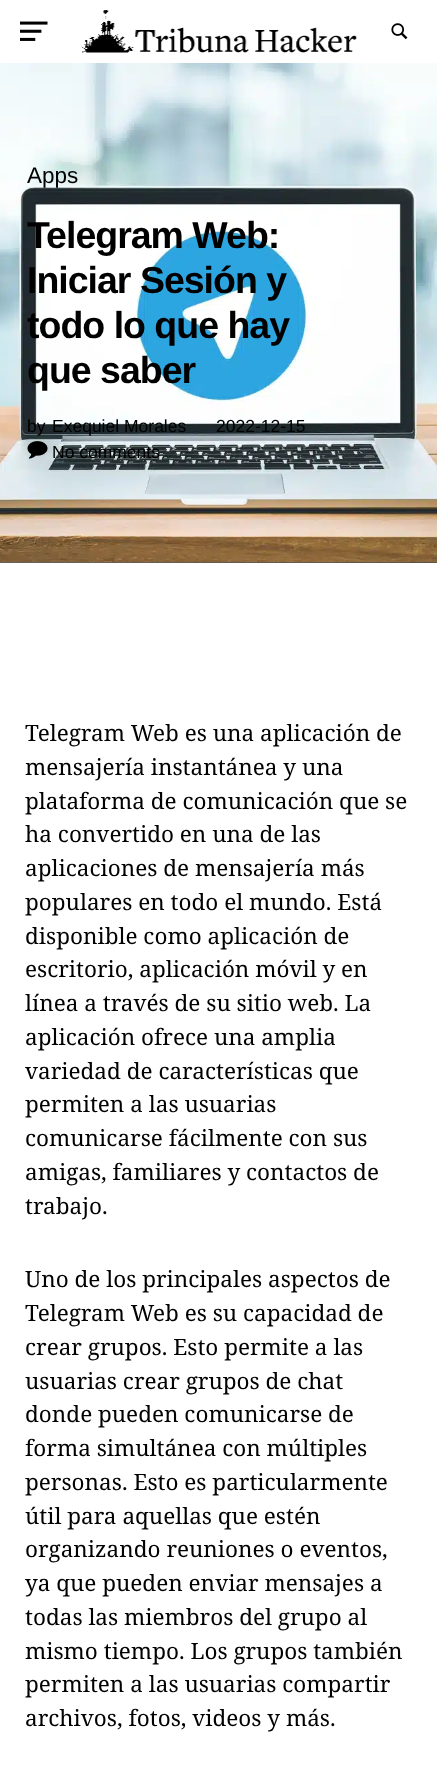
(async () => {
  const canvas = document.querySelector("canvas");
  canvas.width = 437;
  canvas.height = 1791;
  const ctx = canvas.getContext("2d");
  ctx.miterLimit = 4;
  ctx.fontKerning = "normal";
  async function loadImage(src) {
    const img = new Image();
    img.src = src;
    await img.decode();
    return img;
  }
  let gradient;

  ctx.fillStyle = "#ffffff";
  ctx.fillRect(0, 0, 437, 1791);
  ctx.drawImage(await loadImage("img/1.png"), 20, 21, 28, 20);
  ctx.drawImage(await loadImage("img/2.png"), 81, 10, 276, 43);
  ctx.drawImage(await loadImage("img/3.png"), 391, 23, 17, 17);
  gradient = ctx.createLinearGradient(-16, 547, 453, 78);
  gradient.addColorStop(0, "#646464");
  gradient.addColorStop(1, "#323232");
  ctx.fillStyle = gradient;
  ctx.fillRect(0, 562, 437, 1);
  ctx.drawImage(await loadImage("img/4.png"), 0, 63, 437, 500);
  ctx.drawImage(await loadImage("img/5.png"), 27, 441, 21, 18);
  ctx.font = "22.5px Liberation Sans";
  ctx.fillStyle = "#000000";
  ctx.fillText("Apps", 27, 183);
  ctx.letterSpacing = "-1px";
  ctx.font = "bold 37.5px Liberation Sans";
  for (const [text, x, y] of [
    ["Telegram Web:", 27, 248],
    ["Iniciar Sesión y", 27, 293],
    ["todo lo que hay", 27, 338],
    ["que saber", 27, 383],
  ]) {
    ctx.fillText(text, x, y);
  }
  ctx.letterSpacing = "0px";
  ctx.font = "17.5px Liberation Sans";
  for (const [text, x, y] of [
    ["by", 27, 432],
    ["Exequiel Morales", 52, 432],
    ["2022-12-15", 216, 432],
    ["No comments", 52, 458],
  ]) {
    ctx.fillText(text, x, y);
  }
  ctx.font = "22.5px Noto Serif";
  for (const [text, x, y] of [
    ["Telegram Web es una aplicación de", 25, 741],
    ["mensajería instantánea y una", 25, 775],
    ["plataforma de comunicación que se", 25, 809],
    ["ha convertido en una de las", 25, 842],
    ["aplicaciones de mensajería más", 25, 876],
    ["populares en todo el mundo. Está", 25, 910],
    ["disponible como aplicación de", 25, 944],
    ["escritorio, aplicación móvil y en", 25, 977],
    ["línea a través de su sitio web. La", 25, 1011],
    ["aplicación ofrece una amplia", 25, 1045],
    ["variedad de características que", 25, 1079],
    ["permiten a las usuarias", 25, 1112],
    ["comunicarse fácilmente con sus", 25, 1146],
    ["amigas, familiares y contactos de", 25, 1180],
    ["trabajo.", 25, 1214],
    ["Uno de los principales aspectos de", 25, 1287],
    ["Telegram Web es su capacidad de", 25, 1321],
    ["crear grupos. Esto permite a las", 25, 1355],
    ["usuarias crear grupos de chat", 25, 1389],
    ["donde pueden comunicarse de", 25, 1422],
    ["forma simultánea con múltiples", 25, 1456],
    ["personas. Esto es particularmente", 25, 1490],
    ["útil para aquellas que estén", 25, 1524],
    ["organizando reuniones o eventos,", 25, 1557],
    ["ya que pueden enviar mensajes a", 25, 1591],
    ["todas las miembros del grupo al", 25, 1625],
    ["mismo tiempo. Los grupos también", 25, 1659],
    ["permiten a las usuarias compartir", 25, 1692],
    ["archivos, fotos, videos y más.", 25, 1726],
  ]) {
    ctx.fillText(text, x, y);
  }
})();
